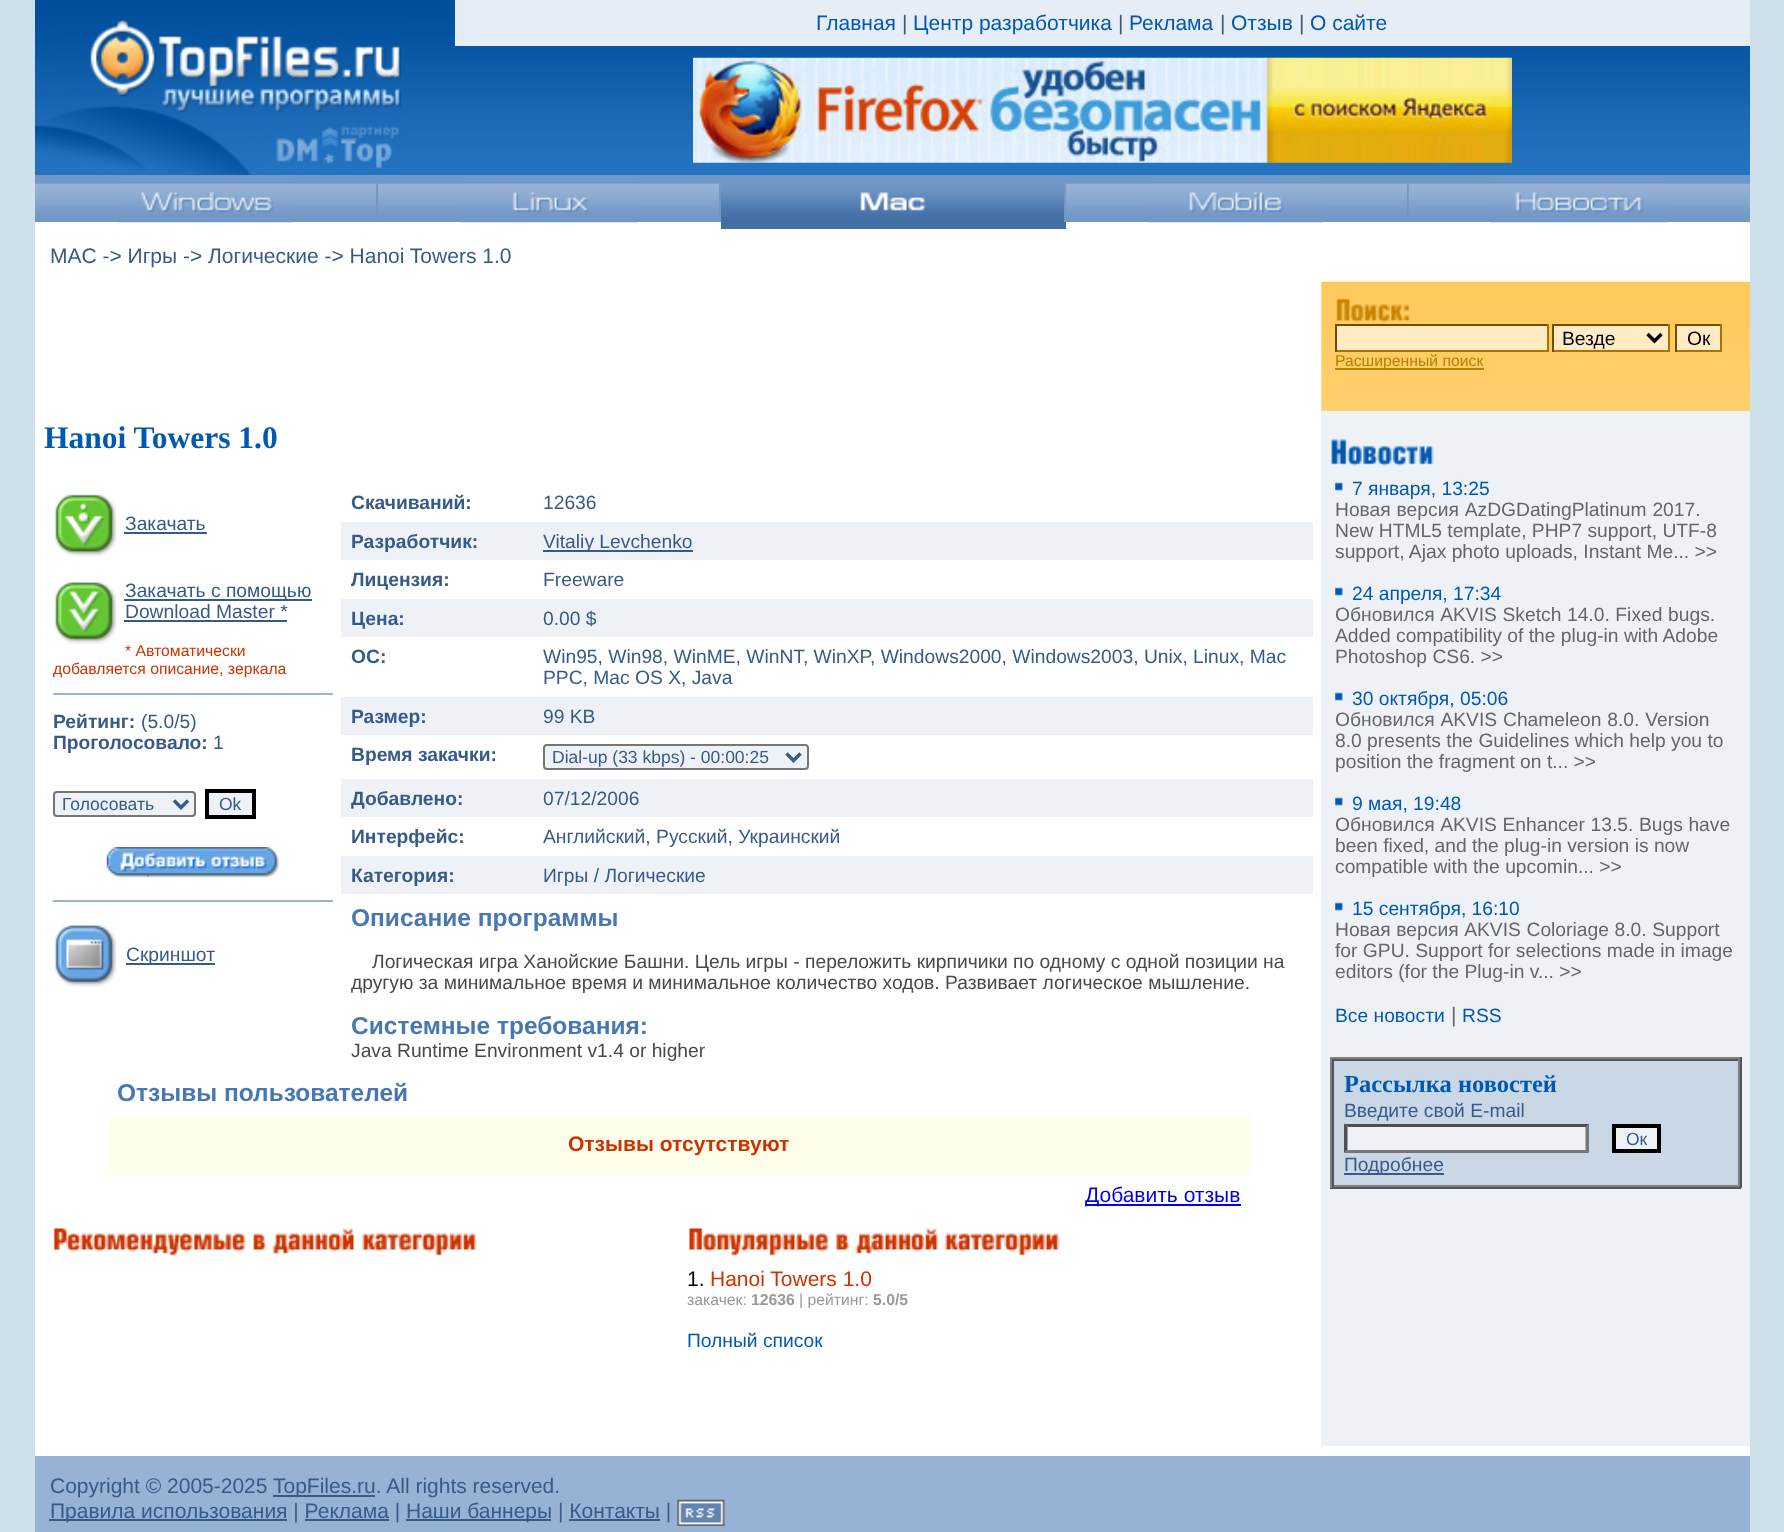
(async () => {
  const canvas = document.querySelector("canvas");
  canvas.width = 1784;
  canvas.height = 1532;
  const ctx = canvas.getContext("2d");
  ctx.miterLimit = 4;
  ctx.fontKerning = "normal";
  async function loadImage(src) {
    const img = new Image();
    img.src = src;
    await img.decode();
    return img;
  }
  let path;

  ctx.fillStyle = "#cee0ea";
  ctx.fillRect(0, 0, 1784, 1532);
  ctx.drawImage(await loadImage("img/1.png"), 35, 0, 1715, 175);
  ctx.drawImage(await loadImage("img/2.png"), 35, 20, 367, 155);
  ctx.fillStyle = "#e7edf5";
  ctx.fillRect(455, 0, 1295, 46);
  ctx.drawImage(await loadImage("img/3.png"), 693, 57, 819, 106);
  ctx.fillStyle = "#7197c6";
  ctx.fillRect(35, 175, 1715, 9);
  ctx.drawImage(await loadImage("img/4.png"), 35, 183, 342, 39);
  ctx.fillStyle = "#ffffff";
  ctx.fillRect(35, 222, 686, 7);
  ctx.drawImage(await loadImage("img/5.png"), 119, 183, 175, 40);
  ctx.drawImage(await loadImage("img/4.png"), 378, 183, 342, 39);
  ctx.drawImage(await loadImage("img/6.png"), 462, 183, 175, 40);
  ctx.fillStyle = "#7197c6";
  ctx.fillRect(1064, 184, 2, 38);
  ctx.drawImage(await loadImage("img/7.png"), 1065, 183, 342, 39);
  ctx.fillStyle = "#ffffff";
  ctx.fillRect(1066, 222, 684, 7);
  ctx.drawImage(await loadImage("img/8.png"), 1148, 183, 175, 40);
  ctx.fillStyle = "#7197c6";
  ctx.fillRect(1407, 184, 2, 38);
  ctx.drawImage(await loadImage("img/7.png"), 1408, 183, 342, 39);
  ctx.drawImage(await loadImage("img/9.png"), 1491, 183, 175, 40);
  ctx.fillRect(376, 184, 2, 38);
  ctx.fillRect(719, 184, 2, 38);
  ctx.drawImage(await loadImage("img/10.png"), 721, 184, 343, 38);
  ctx.drawImage(await loadImage("img/11.png"), 860, 192, 66, 19);
  for (const [x, y, w, h, color] of [
    [721, 222, 345, 7, "#426fa6"],
    [35, 229, 1715, 53, "#ffffff"],
    [35, 282, 1287, 129, "#ffffff"],
  ]) {
    ctx.fillStyle = color;
    ctx.fillRect(x, y, w, h);
  }
  ctx.drawImage(await loadImage("img/12.png"), 1321, 281, 429, 130);
  ctx.drawImage(await loadImage("img/13.png"), 1336, 298, 74, 25);
  for (const [x, y, w, h, color] of [
    [1337, 326, 210, 24, "#ffecc4"],
    [1335, 324, 214, 2, "#714d00"],
    [1547, 324, 2, 28, "#aa7300"],
    [1335, 350, 214, 2, "#aa7300"],
    [1335, 324, 2, 28, "#714d00"],
    [1554, 326, 114, 24, "#ffecc4"],
    [1552, 324, 118, 2, "#714d00"],
    [1668, 324, 2, 28, "#aa7300"],
    [1552, 350, 118, 2, "#aa7300"],
    [1552, 324, 2, 28, "#714d00"],
  ]) {
    ctx.fillStyle = color;
    ctx.fillRect(x, y, w, h);
  }
  path = new Path2D("M1647.5 334L1654.5 341L1661.5 334");
  ctx.strokeStyle = "#000000";
  ctx.lineWidth = 3.5;
  ctx.stroke(path);
  for (const [x, y, w, h, color] of [
    [1677, 326, 43, 24, "#ffecc4"],
    [1675, 324, 47, 2, "#714d00"],
    [1720, 324, 2, 28, "#aa7300"],
    [1675, 350, 47, 2, "#aa7300"],
    [1675, 324, 2, 28, "#714d00"],
    [1335, 368, 149, 2, "#bb7e00"],
    [35, 411, 1286, 1035, "#ffffff"],
  ]) {
    ctx.fillStyle = color;
    ctx.fillRect(x, y, w, h);
  }
  ctx.drawImage(await loadImage("img/14.png"), 54, 493, 63, 64);
  ctx.fillStyle = "#375b88";
  ctx.fillRect(124, 532, 83, 2);
  ctx.drawImage(await loadImage("img/15.png"), 54, 581, 63, 63);
  for (const [x, y, w, h, color] of [
    [124, 599, 188, 2, "#375b88"],
    [124, 620, 163, 2, "#375b88"],
    [53, 693, 280, 2, "#96b3d6"],
  ]) {
    ctx.fillStyle = color;
    ctx.fillRect(x, y, w, h);
  }
  ctx.fillStyle = "#eef2f7";
  ctx.beginPath();
  ctx.roundRect(54, 792, 141, 24, 3);
  ctx.fill();
  ctx.strokeStyle = "#767676";
  ctx.lineWidth = 2;
  ctx.stroke();
  path = new Path2D("M174 800.5L181 807.5L188 800.5");
  ctx.strokeStyle = "#375b88";
  ctx.lineWidth = 3.5;
  ctx.stroke(path);
  ctx.beginPath();
  ctx.rect(207, 791, 47, 26);
  ctx.fill();
  ctx.strokeStyle = "#000000";
  ctx.lineWidth = 4;
  ctx.stroke();
  ctx.drawImage(await loadImage("img/16.png"), 106, 847, 173, 31);
  ctx.fillStyle = "#96b3d6";
  ctx.fillRect(53, 900, 280, 2);
  ctx.drawImage(await loadImage("img/17.png"), 54, 924, 63, 63);
  for (const [x, y, w, h, color] of [
    [126, 963, 89, 2, "#375b88"],
    [341, 522, 972, 38, "#eef2f7"],
    [543, 550, 150, 2, "#375b88"],
    [341, 599, 972, 38, "#eef2f7"],
    [341, 697, 972, 38, "#eef2f7"],
  ]) {
    ctx.fillStyle = color;
    ctx.fillRect(x, y, w, h);
  }
  ctx.beginPath();
  ctx.roundRect(544, 745, 264, 24, 3);
  ctx.fill();
  ctx.strokeStyle = "#767676";
  ctx.lineWidth = 2;
  ctx.stroke();
  path = new Path2D("M786.5 753.5L793.5 760.5L800.5 753.5");
  ctx.strokeStyle = "#375b88";
  ctx.lineWidth = 3.5;
  ctx.stroke(path);
  for (const [x, y, w, h, color] of [
    [341, 779, 972, 38, "#eef2f7"],
    [341, 856, 972, 38, "#eef2f7"],
    [109, 1115, 1141, 59, "#fffeea"],
    [1085, 1204, 156, 2, "#0000ee"],
  ]) {
    ctx.fillStyle = color;
    ctx.fillRect(x, y, w, h);
  }
  ctx.drawImage(await loadImage("img/18.png"), 53, 1228, 424, 28);
  ctx.drawImage(await loadImage("img/19.png"), 689, 1228, 371, 28);
  ctx.fillStyle = "#eef2f7";
  ctx.fillRect(1321, 411, 429, 1035);
  ctx.drawImage(await loadImage("img/20.png"), 1331, 438, 103, 28);
  ctx.drawImage(await loadImage("img/21.png"), 1335, 482, 8, 9);
  ctx.drawImage(await loadImage("img/21.png"), 1335, 587, 8, 9);
  ctx.drawImage(await loadImage("img/21.png"), 1335, 692, 8, 9);
  ctx.drawImage(await loadImage("img/21.png"), 1335, 797, 8, 9);
  ctx.drawImage(await loadImage("img/21.png"), 1335, 902, 8, 9);
  for (const [x, y, w, h, color] of [
    [1330, 1057, 411, 2, "#808080"],
    [1740, 1057, 2, 131, "#555555"],
    [1330, 1187, 411, 2, "#555555"],
    [1330, 1057, 2, 131, "#808080"],
    [1334, 1061, 404, 124, "#cad7e6"],
    [1332, 1059, 408, 2, "#555555"],
    [1738, 1059, 2, 128, "#808080"],
    [1332, 1185, 408, 2, "#808080"],
    [1332, 1059, 2, 128, "#555555"],
    [1344, 1124, 245, 29, "#eef2f7"],
  ]) {
    ctx.fillStyle = color;
    ctx.fillRect(x, y, w, h);
  }
  ctx.fillStyle = "#4f4f4f";
  path = new Path2D("M1344 1124H1589L1586 1127H1348Z");
  ctx.fill(path);
  ctx.fillStyle = "#767676";
  path = new Path2D("M1589 1123.5V1153L1585.5 1150V1127Z");
  ctx.fill(path);
  path = new Path2D("M1589 1153H1344L1348 1150H1586Z");
  ctx.fill(path);
  ctx.fillStyle = "#4f4f4f";
  path = new Path2D("M1344 1153V1123.5L1347.5 1127V1150Z");
  ctx.fill(path);
  ctx.fillStyle = "#eef2f7";
  ctx.beginPath();
  ctx.rect(1614, 1126, 45, 25);
  ctx.fill();
  ctx.strokeStyle = "#000000";
  ctx.lineWidth = 4;
  ctx.stroke();
  for (const [x, y, w, h, color] of [
    [1344, 1173, 100, 2, "#375b88"],
    [35, 1446, 1715, 10, "#ffffff"],
    [35, 1456, 1715, 76, "#96b3d6"],
    [273, 1495, 102, 2, "#375b88"],
    [49, 1519, 238, 2, "#375b88"],
    [406, 1519, 145, 2, "#375b88"],
  ]) {
    ctx.fillStyle = color;
    ctx.fillRect(x, y, w, h);
  }
  ctx.drawImage(await loadImage("img/22.png"), 677, 1499, 48, 27);
  ctx.fillRect(305, 1519, 84, 2);
  ctx.fillRect(569, 1519, 91, 2);
  ctx.font = "21px Liberation Sans";
  ctx.fillStyle = "#0059b1";
  ctx.fillText("Главная", 816, 30);
  ctx.fillStyle = "#375b88";
  ctx.fillText("|", 902, 30);
  ctx.fillStyle = "#0059b1";
  ctx.fillText("Центр разработчика", 913, 30);
  ctx.fillStyle = "#375b88";
  ctx.fillText("|", 1118, 30);
  ctx.fillStyle = "#0059b1";
  ctx.fillText("Реклама", 1129, 30);
  ctx.fillStyle = "#375b88";
  ctx.fillText("|", 1220, 30);
  ctx.fillStyle = "#0059b1";
  ctx.fillText("Отзыв", 1231, 30);
  ctx.fillStyle = "#375b88";
  ctx.fillText("|", 1299, 30);
  ctx.fillStyle = "#0059b1";
  ctx.fillText("О сайте", 1310, 30);
  ctx.fillStyle = "#375b88";
  ctx.fillText("MAC -> Игры -> Логические -> Hanoi Towers 1.0", 50, 263);
  ctx.font = "19.25px Liberation Sans";
  ctx.fillStyle = "#000000";
  ctx.fillText("Везде", 1562, 345);
  ctx.fillText("Ок", 1687, 345);
  ctx.font = "15.75px Liberation Sans";
  ctx.fillStyle = "#bb7e00";
  ctx.fillText("Расширенный поиск", 1335, 366);
  ctx.font = "bold 31.5px Liberation Serif";
  ctx.fillStyle = "#0059b1";
  ctx.fillText("Hanoi Towers 1.0", 44, 448);
  ctx.font = "bold 19.25px Liberation Sans";
  ctx.fillStyle = "#375b88";
  ctx.fillText("Скачиваний:", 351, 509);
  ctx.font = "19.25px Liberation Sans";
  for (const [text, x, y] of [
    ["12636", 543, 509],
    ["Закачать", 125, 530],
    ["Закачать с помощью", 125, 597],
    ["Download Master *", 125, 618],
  ]) {
    ctx.fillText(text, x, y);
  }
  ctx.font = "15.75px Liberation Sans";
  ctx.fillStyle = "#cc3300";
  ctx.fillText("* Автоматически", 125, 656);
  ctx.fillText("добавляется описание, зеркала", 53, 674);
  ctx.font = "bold 19.25px Liberation Sans";
  ctx.fillStyle = "#375b88";
  ctx.fillText("Рейтинг:", 53, 728);
  ctx.font = "19.25px Liberation Sans";
  ctx.fillText("(5.0/5)", 141, 728);
  ctx.font = "bold 19.25px Liberation Sans";
  ctx.fillText("Проголосовало:", 53, 749);
  ctx.font = "19.25px Liberation Sans";
  ctx.fillText("1", 213, 749);
  ctx.font = "17.5px Liberation Sans";
  ctx.fillText("Голосовать", 62, 810);
  ctx.fillText("Ok", 219, 810);
  ctx.font = "19.25px Liberation Sans";
  ctx.fillText("Скриншот", 126, 961);
  ctx.font = "bold 19.25px Liberation Sans";
  ctx.fillText("Разработчик:", 351, 548);
  ctx.font = "19.25px Liberation Sans";
  ctx.fillText("Vitaliy Levchenko", 543, 548);
  ctx.font = "bold 19.25px Liberation Sans";
  ctx.fillText("Лицензия:", 351, 586);
  ctx.font = "19.25px Liberation Sans";
  ctx.fillText("Freeware", 543, 586);
  ctx.font = "bold 19.25px Liberation Sans";
  ctx.fillText("Цена:", 351, 625);
  ctx.font = "19.25px Liberation Sans";
  ctx.fillText("0.00 $", 543, 625);
  ctx.font = "bold 19.25px Liberation Sans";
  ctx.fillText("ОС:", 351, 663);
  ctx.font = "19.25px Liberation Sans";
  ctx.fillText("Win95, Win98, WinME, WinNT, WinXP, Windows2000, Windows2003, Unix, Linux, Mac", 543, 663);
  ctx.fillText("PPC, Mac OS X, Java", 543, 684);
  ctx.font = "bold 19.25px Liberation Sans";
  ctx.fillText("Размер:", 351, 723);
  ctx.font = "19.25px Liberation Sans";
  ctx.fillText("99 KB", 543, 723);
  ctx.font = "bold 19.25px Liberation Sans";
  ctx.fillText("Время закачки:", 351, 761);
  ctx.font = "17.5px Liberation Sans";
  ctx.fillText("Dial-up (33 kbps) - 00:00:25", 552, 763);
  ctx.font = "bold 19.25px Liberation Sans";
  ctx.fillText("Добавлено:", 351, 805);
  ctx.font = "19.25px Liberation Sans";
  ctx.fillText("07/12/2006", 543, 805);
  ctx.font = "bold 19.25px Liberation Sans";
  ctx.fillText("Интерфейс:", 351, 843);
  ctx.font = "19.25px Liberation Sans";
  ctx.fillText("Английский, Русский, Украинский", 543, 843);
  ctx.font = "bold 19.25px Liberation Sans";
  ctx.fillText("Категория:", 351, 882);
  ctx.font = "19.25px Liberation Sans";
  ctx.fillText("Игры / Логические", 543, 882);
  ctx.font = "bold 24.5px Liberation Sans";
  ctx.fillStyle = "#4878b3";
  ctx.fillText("Описание программы", 351, 926);
  ctx.font = "19.25px Liberation Sans";
  ctx.fillStyle = "#494949";
  ctx.fillText("Логическая игра Ханойские Башни. Цель игры - переложить кирпичики по одному с одной позиции на", 372, 968);
  ctx.fillText("другую за минимальное время и минимальное количество ходов. Развивает логическое мышление.", 351, 989);
  ctx.font = "bold 24.5px Liberation Sans";
  ctx.fillStyle = "#4878b3";
  ctx.fillText("Системные требования:", 351, 1034);
  ctx.font = "19.25px Liberation Sans";
  ctx.fillStyle = "#494949";
  ctx.fillText("Java Runtime Environment v1.4 or higher", 351, 1057);
  ctx.font = "bold 24.5px Liberation Sans";
  ctx.fillStyle = "#4878b3";
  ctx.fillText("Отзывы пользователей", 117, 1101);
  ctx.font = "bold 21px Liberation Sans";
  ctx.fillStyle = "#cc3300";
  ctx.fillText("Отзывы отсутствуют", 568, 1151);
  ctx.font = "21px Liberation Sans";
  ctx.fillStyle = "#0000ee";
  ctx.fillText("Добавить отзыв", 1085, 1202);
  ctx.fillStyle = "#000000";
  ctx.fillText("1.", 687, 1286);
  ctx.fillStyle = "#cc3300";
  ctx.fillText("Hanoi Towers 1.0", 710, 1286);
  ctx.font = "15.75px Liberation Sans";
  ctx.fillStyle = "#999999";
  ctx.fillText("закачек:", 687, 1305);
  ctx.font = "bold 15.75px Liberation Sans";
  ctx.fillText("12636", 751, 1305);
  ctx.font = "15.75px Liberation Sans";
  ctx.fillText("| рейтинг:", 799, 1305);
  ctx.font = "bold 15.75px Liberation Sans";
  ctx.fillText("5.0/5", 873, 1305);
  ctx.font = "19.25px Liberation Sans";
  ctx.fillStyle = "#0059b1";
  ctx.fillText("Полный список", 687, 1347);
  ctx.fillText("7 января, 13:25", 1352, 495);
  ctx.wordSpacing = "0.5px";
  ctx.fillStyle = "#666666";
  ctx.fillText("Новая версия AzDGDatingPlatinum 2017.", 1335, 516);
  ctx.wordSpacing = "0px";
  ctx.fillText("New HTML5 template, PHP7 support, UTF-8", 1335, 537);
  ctx.fillText("support, Ajax photo uploads, Instant Me... >>", 1335, 558);
  ctx.fillStyle = "#0059b1";
  ctx.fillText("24 апреля, 17:34", 1352, 600);
  ctx.wordSpacing = "0.25px";
  ctx.fillStyle = "#666666";
  ctx.fillText("Обновился AKVIS Sketch 14.0. Fixed bugs.", 1335, 621);
  ctx.wordSpacing = "0px";
  ctx.fillText("Added compatibility of the plug-in with Adobe", 1335, 642);
  ctx.fillText("Photoshop CS6. >>", 1335, 663);
  ctx.fillStyle = "#0059b1";
  ctx.fillText("30 октября, 05:06", 1352, 705);
  ctx.wordSpacing = "0.5px";
  ctx.fillStyle = "#666666";
  ctx.fillText("Обновился AKVIS Chameleon 8.0. Version", 1335, 726);
  ctx.wordSpacing = "0px";
  ctx.fillText("8.0 presents the Guidelines which help you to", 1335, 747);
  ctx.fillText("position the fragment on t... >>", 1335, 768);
  ctx.fillStyle = "#0059b1";
  ctx.fillText("9 мая, 19:48", 1352, 810);
  ctx.wordSpacing = "0.25px";
  ctx.fillStyle = "#666666";
  ctx.fillText("Обновился AKVIS Enhancer 13.5. Bugs have", 1335, 831);
  ctx.wordSpacing = "0px";
  ctx.fillText("been fixed, and the plug-in version is now", 1335, 852);
  ctx.fillText("compatible with the upcomin... >>", 1335, 873);
  ctx.fillStyle = "#0059b1";
  ctx.fillText("15 сентября, 16:10", 1352, 915);
  ctx.wordSpacing = "0.25px";
  ctx.fillStyle = "#666666";
  ctx.fillText("Новая версия AKVIS Coloriage 8.0. Support", 1335, 936);
  ctx.wordSpacing = "0px";
  ctx.fillText("for GPU. Support for selections made in image", 1335, 957);
  ctx.fillText("editors (for the Plug-in v... >>", 1335, 978);
  ctx.fillStyle = "#0059b1";
  ctx.fillText("Все новости", 1335, 1022);
  ctx.font = "21px Liberation Sans";
  ctx.fillStyle = "#666666";
  ctx.fillText("|", 1451, 1022);
  ctx.font = "19.25px Liberation Sans";
  ctx.fillStyle = "#0059b1";
  ctx.fillText("RSS", 1462, 1022);
  ctx.font = "bold 24.5px Liberation Serif";
  ctx.fillText("Рассылка новостей", 1344, 1092);
  ctx.font = "19.25px Liberation Sans";
  ctx.fillStyle = "#375b88";
  ctx.fillText("Введите свой E-mail", 1344, 1117);
  ctx.font = "17.5px Liberation Sans";
  ctx.fillText("Ок", 1626, 1145);
  ctx.font = "19.25px Liberation Sans";
  ctx.fillText("Подробнее", 1344, 1171);
  ctx.font = "21px Liberation Sans";
  for (const [text, x, y] of [
    ["Copyright © 2005-2025", 50, 1493],
    ["TopFiles.ru. All rights reserved.", 273, 1493],
    ["Правила использования | Реклама |", 50, 1518],
    ["Наши баннеры | Контакты |", 406, 1518],
  ]) {
    ctx.fillText(text, x, y);
  }
})();
